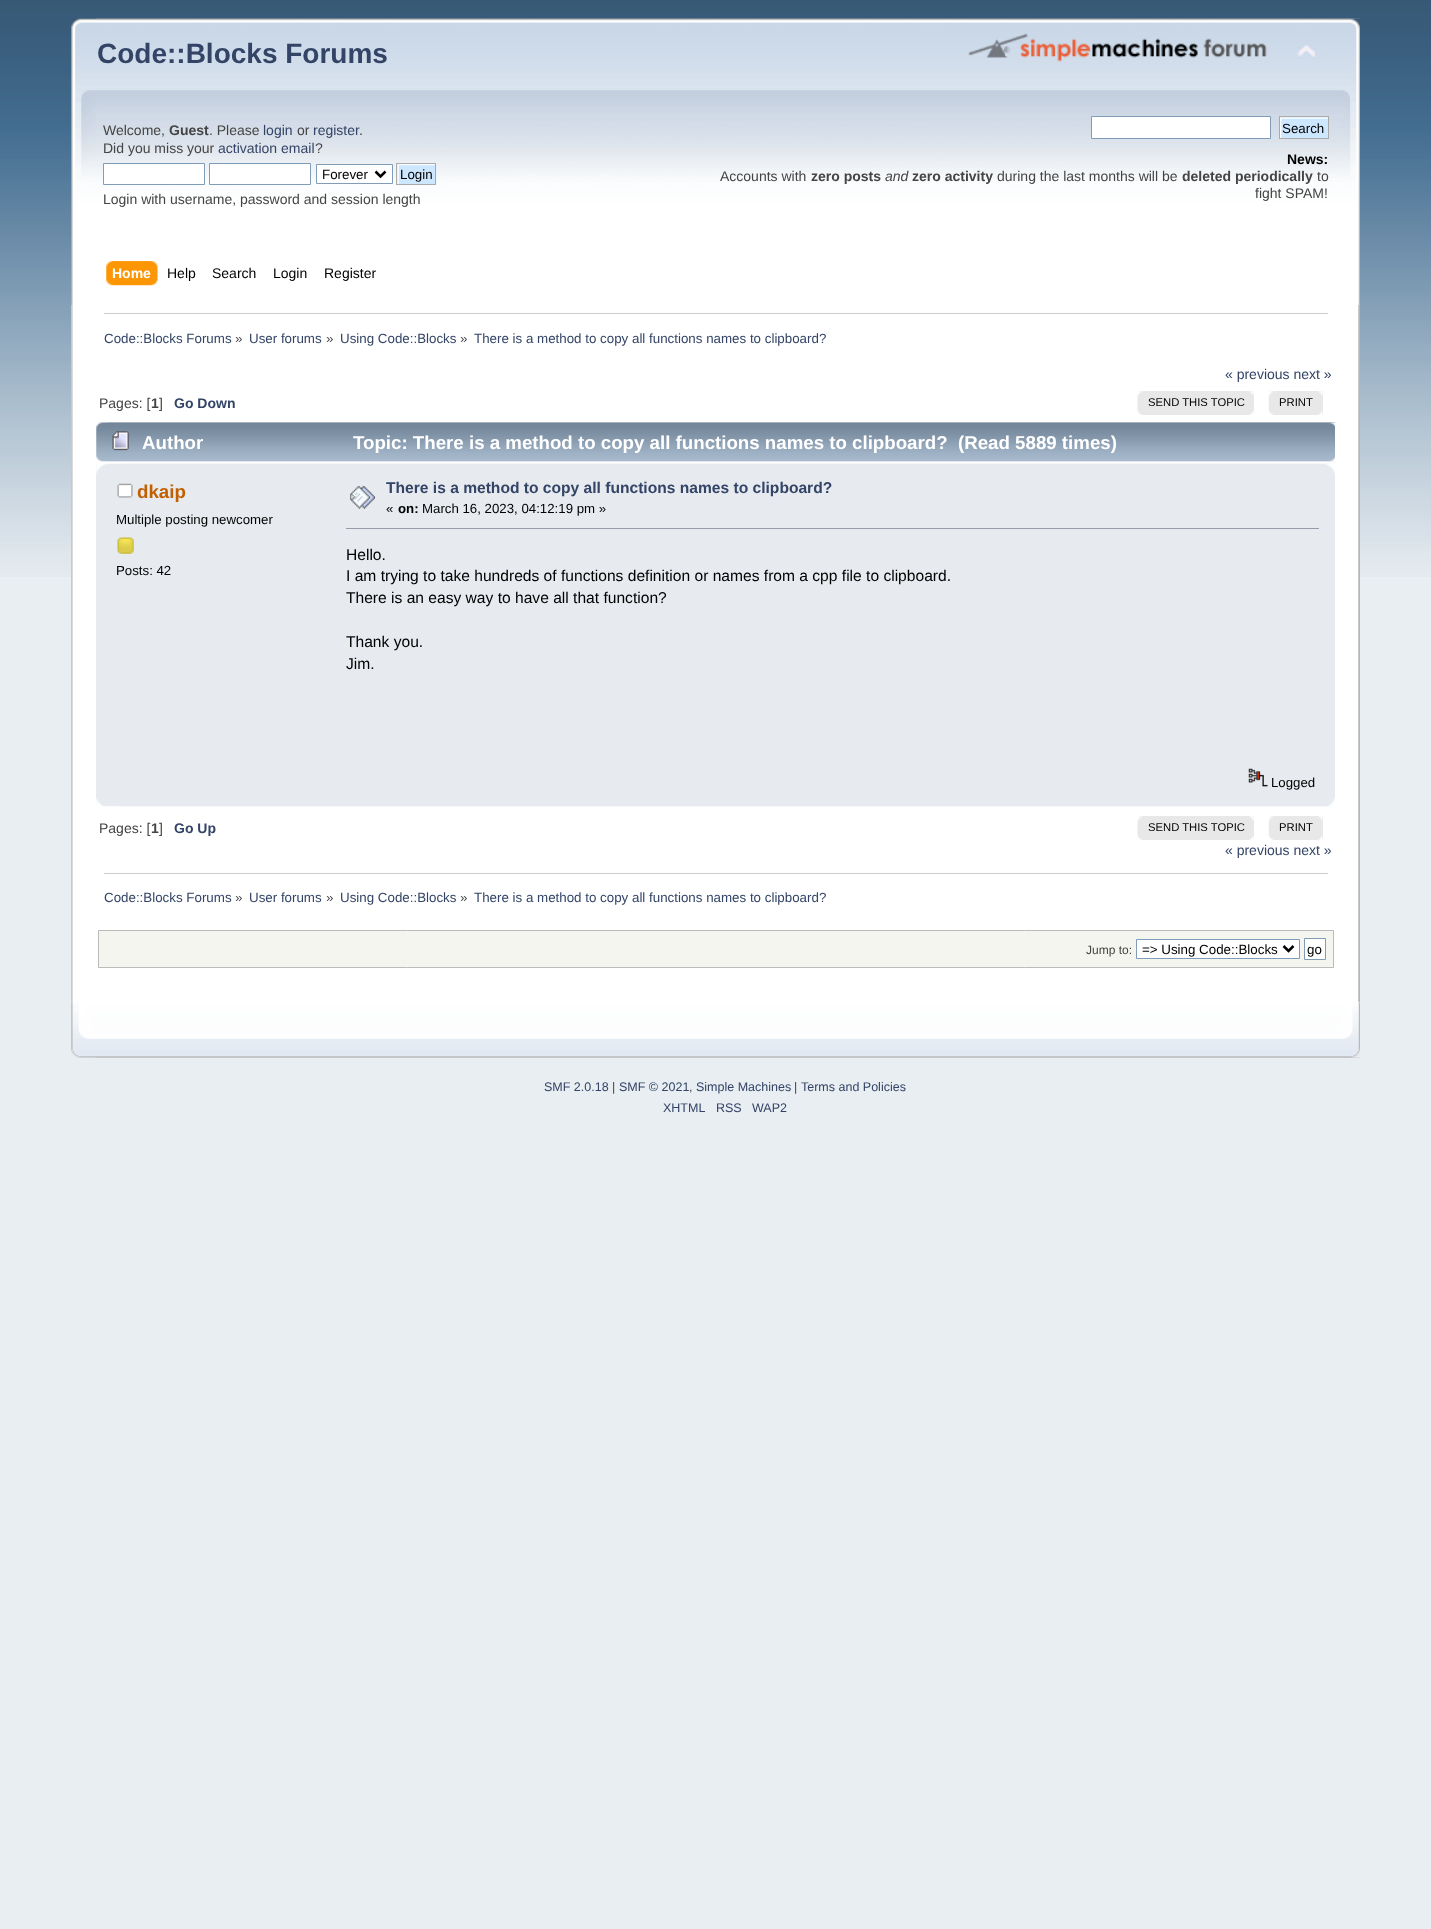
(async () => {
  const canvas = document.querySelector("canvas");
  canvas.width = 1431;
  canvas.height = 1929;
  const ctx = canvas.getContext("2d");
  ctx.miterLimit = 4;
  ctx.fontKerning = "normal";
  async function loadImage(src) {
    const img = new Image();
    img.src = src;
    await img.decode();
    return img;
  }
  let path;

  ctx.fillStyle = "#e9eef2";
  ctx.fillRect(0, 0, 1431, 1929);
  ctx.drawImage(await loadImage("img/1.png"), 0, 0, 1431, 577);
  ctx.drawImage(await loadImage("img/2.png"), 71, 18, 1289, 287);
  ctx.drawImage(await loadImage("img/3.png"), 96, 18, 1264, 287);
  ctx.drawImage(await loadImage("img/4.png"), 968, 33, 299, 29);
  ctx.drawImage(await loadImage("img/5.png"), 1297, 44, 19, 15);
  ctx.fillStyle = "#ffffff";
  ctx.beginPath();
  ctx.rect(103.5, 163.5, 101, 21);
  ctx.fill();
  ctx.strokeStyle = "#7f9db9";
  ctx.stroke();
  ctx.beginPath();
  ctx.rect(209.5, 163.5, 101, 21);
  ctx.fill();
  ctx.stroke();
  ctx.beginPath();
  ctx.rect(316.5, 164.5, 76, 19);
  ctx.fill();
  ctx.stroke();
  path = new Path2D("M375.5 171.5L380.5 176.5L385.5 171.5");
  ctx.strokeStyle = "#000000";
  ctx.lineWidth = 2.5;
  ctx.stroke(path);
  ctx.fillStyle = "#cde7ff";
  ctx.fillRect(397, 164, 1, 20);
  ctx.drawImage(await loadImage("img/6.png"), 397, 163, 40, 22);
  ctx.strokeStyle = "#aaaaaa";
  ctx.lineWidth = 1;
  ctx.strokeRect(396.5, 163.5, 39, 21);
  ctx.fillStyle = "#ffffff";
  ctx.beginPath();
  ctx.rect(1091.5, 116.5, 179, 22);
  ctx.fill();
  ctx.strokeStyle = "#7f9db9";
  ctx.stroke();
  ctx.fillStyle = "#cde7ff";
  ctx.fillRect(1280, 117, 48, 1);
  ctx.drawImage(await loadImage("img/7.png"), 1280, 117, 48, 21);
  ctx.strokeStyle = "#aaaaaa";
  ctx.strokeRect(1279.5, 116.5, 49, 22);
  ctx.drawImage(await loadImage("img/8.png"), 112, 261, 46, 25);
  ctx.drawImage(await loadImage("img/9.png"), 106, 261, 46, 25);
  ctx.fillStyle = "#ffffff";
  ctx.fillRect(71, 305, 1289, 698);
  ctx.drawImage(await loadImage("img/10.png"), 71, 305, 2, 698);
  ctx.drawImage(await loadImage("img/11.png"), 1358, 305, 2, 698);
  ctx.fillStyle = "#cccccc";
  ctx.fillRect(104, 313, 1224, 1);
  ctx.fillStyle = "#e8e8e8";
  ctx.fillRect(1138, 391, 116, 24);
  ctx.drawImage(await loadImage("img/12.png"), 1137, 391, 5, 24);
  ctx.drawImage(await loadImage("img/13.png"), 1249, 391, 5, 24);
  ctx.fillRect(1269, 391, 54, 24);
  ctx.drawImage(await loadImage("img/14.png"), 1268, 391, 6, 24);
  ctx.drawImage(await loadImage("img/15.png"), 1318, 391, 5, 24);
  ctx.drawImage(await loadImage("img/16.png"), 96, 422, 1239, 40);
  ctx.drawImage(await loadImage("img/17.png"), 107, 422, 1228, 40);
  ctx.drawImage(await loadImage("img/18.png"), 112, 431, 17, 20);
  ctx.fillStyle = "#e7eaef";
  ctx.fillRect(96, 464, 1239, 342);
  ctx.drawImage(await loadImage("img/19.png"), 96, 463, 1239, 11);
  ctx.drawImage(await loadImage("img/20.png"), 122, 463, 1213, 11);
  ctx.drawImage(await loadImage("img/21.png"), 117, 483, 16, 15);
  ctx.drawImage(await loadImage("img/22.png"), 117, 537, 17, 17);
  ctx.drawImage(await loadImage("img/23.png"), 350, 486, 25, 23);
  ctx.fillStyle = "#9999aa";
  ctx.fillRect(346, 528, 973, 1);
  ctx.drawImage(await loadImage("img/24.png"), 1248, 768, 20, 19);
  ctx.drawImage(await loadImage("img/25.png"), 96, 798, 1239, 9);
  ctx.drawImage(await loadImage("img/26.png"), 122, 797, 1213, 10);
  ctx.fillStyle = "#e8e8e8";
  ctx.fillRect(1138, 816, 116, 24);
  ctx.drawImage(await loadImage("img/12.png"), 1137, 816, 5, 24);
  ctx.drawImage(await loadImage("img/13.png"), 1249, 816, 5, 24);
  ctx.fillRect(1269, 816, 54, 24);
  ctx.drawImage(await loadImage("img/14.png"), 1268, 816, 6, 24);
  ctx.drawImage(await loadImage("img/15.png"), 1318, 816, 5, 24);
  ctx.fillStyle = "#cccccc";
  ctx.fillRect(104, 873, 1224, 1);
  ctx.fillStyle = "#f5f5f0";
  ctx.beginPath();
  ctx.rect(98.5, 930.5, 1235, 37);
  ctx.fill();
  ctx.strokeStyle = "#bbbbbb";
  ctx.stroke();
  ctx.fillStyle = "#ffffff";
  ctx.beginPath();
  ctx.rect(1136.5, 939.5, 163, 19);
  ctx.fill();
  ctx.strokeStyle = "#7f9db9";
  ctx.stroke();
  path = new Path2D("M1283.5 946L1288.5 951L1293.5 946");
  ctx.strokeStyle = "#000000";
  ctx.lineWidth = 2.5;
  ctx.stroke(path);
  ctx.beginPath();
  ctx.rect(1304.5, 938.5, 21, 21);
  ctx.fill();
  ctx.strokeStyle = "#7f9db9";
  ctx.lineWidth = 1;
  ctx.stroke();
  ctx.drawImage(await loadImage("img/27.png"), 71, 1002, 1289, 56);
  ctx.drawImage(await loadImage("img/28.png"), 96, 1002, 1264, 56);
  ctx.font = "bold 28px Liberation Sans";
  ctx.fillStyle = "#334466";
  ctx.fillText("Code::Blocks Forums", 97, 63);
  ctx.font = "14px Liberation Sans";
  ctx.fillStyle = "#444444";
  ctx.fillText("Welcome,", 103, 135);
  ctx.font = "bold 14px Liberation Sans";
  ctx.fillText("Guest", 169, 135);
  ctx.font = "14px Liberation Sans";
  ctx.fillText(". Please", 209, 135);
  ctx.fillStyle = "#334466";
  ctx.fillText("login", 263, 135);
  ctx.fillStyle = "#444444";
  ctx.fillText("or", 297, 135);
  ctx.fillStyle = "#334466";
  ctx.fillText("register", 313, 135);
  ctx.fillStyle = "#444444";
  ctx.fillText(".", 359, 135);
  ctx.fillText("Did you miss your", 103, 153);
  ctx.fillStyle = "#334466";
  ctx.fillText("activation email", 218, 153);
  ctx.fillStyle = "#444444";
  ctx.fillText("?", 315, 153);
  ctx.font = "13.35px Liberation Sans";
  ctx.fillStyle = "#000000";
  ctx.fillText("Forever", 322, 179);
  ctx.fillText("Login", 400, 179);
  ctx.font = "14px Liberation Sans";
  ctx.fillStyle = "#444444";
  ctx.fillText("Login with username, password and session length", 103, 204);
  ctx.font = "13.35px Liberation Sans";
  ctx.fillStyle = "#000000";
  ctx.fillText("Search", 1282, 133);
  ctx.font = "bold 14px Liberation Sans";
  ctx.fillText("News:", 1287, 164);
  ctx.font = "14px Liberation Sans";
  ctx.fillStyle = "#444444";
  ctx.fillText("Accounts with", 720, 181);
  ctx.font = "bold 14px Liberation Sans";
  ctx.fillText("zero posts", 811, 181);
  ctx.font = "italic 14px Liberation Sans";
  ctx.fillText("and", 885, 181);
  ctx.font = "bold 14px Liberation Sans";
  ctx.fillText("zero activity", 912, 181);
  ctx.font = "14px Liberation Sans";
  ctx.fillText("during the last months will be", 997, 181);
  ctx.font = "bold 14px Liberation Sans";
  ctx.fillText("deleted periodically", 1182, 181);
  ctx.font = "14px Liberation Sans";
  ctx.fillText("to", 1317, 181);
  ctx.fillText("fight SPAM!", 1255, 198);
  ctx.font = "bold 14px Liberation Sans";
  ctx.fillStyle = "#ffffff";
  ctx.fillText("Home", 112, 278);
  ctx.font = "14px Liberation Sans";
  ctx.fillStyle = "#000000";
  for (const [text, x, y] of [
    ["Help", 167, 278],
    ["Search", 212, 278],
    ["Login", 273, 278],
    ["Register", 324, 278],
  ]) {
    ctx.fillText(text, x, y);
  }
  ctx.font = "13.35px Liberation Sans";
  ctx.fillStyle = "#334466";
  ctx.fillText("Code::Blocks Forums", 104, 343);
  ctx.fillStyle = "#444444";
  ctx.fillText("»", 235, 343);
  ctx.fillStyle = "#334466";
  ctx.fillText("User forums", 249, 343);
  ctx.fillStyle = "#444444";
  ctx.fillText("»", 326, 343);
  ctx.fillStyle = "#334466";
  ctx.fillText("Using Code::Blocks", 340, 343);
  ctx.fillStyle = "#444444";
  ctx.fillText("»", 460, 343);
  ctx.fillStyle = "#334466";
  ctx.fillText("There is a method to copy all functions names to clipboard?", 474, 343);
  ctx.font = "14px Liberation Sans";
  ctx.fillText("« previous next »", 1225, 379);
  ctx.fillStyle = "#444444";
  ctx.fillText("Pages: [", 99, 408);
  ctx.font = "bold 14px Liberation Sans";
  ctx.fillText("1", 151, 408);
  ctx.font = "14px Liberation Sans";
  ctx.fillText("]", 159, 408);
  ctx.font = "bold 14px Liberation Sans";
  ctx.fillStyle = "#334466";
  ctx.fillText("Go Down", 174, 408);
  ctx.font = "11.25px Liberation Sans";
  ctx.fillStyle = "#000000";
  ctx.fillText("SEND THIS TOPIC", 1148, 406);
  ctx.fillText("PRINT", 1279, 406);
  ctx.font = "bold 18.7px Liberation Sans";
  ctx.fillStyle = "#ffffff";
  ctx.fillText("Author", 142, 449);
  ctx.fillText("Topic: There is a method to copy all functions names to clipboard?  (Read 5889 times)", 353, 449);
  ctx.fillStyle = "#c06002";
  ctx.fillText("dkaip", 137, 498);
  ctx.font = "13.25px Liberation Sans";
  ctx.fillStyle = "#000000";
  ctx.fillText("Multiple posting newcomer", 116, 524);
  ctx.fillText("Posts: 42", 116, 575);
  ctx.font = "bold 15.6px Liberation Sans";
  ctx.fillStyle = "#334466";
  ctx.fillText("There is a method to copy all functions names to clipboard?", 386, 493);
  ctx.font = "13.25px Liberation Sans";
  ctx.fillStyle = "#000000";
  ctx.fillText("«", 386, 513);
  ctx.font = "bold 13.25px Liberation Sans";
  ctx.fillText("on:", 398, 513);
  ctx.font = "13.25px Liberation Sans";
  ctx.fillText("March 16, 2023, 04:12:19 pm »", 422, 513);
  ctx.font = "15.6px Liberation Sans";
  for (const [text, x, y] of [
    ["Hello.", 346, 560],
    ["I am trying to take hundreds of functions definition or names from a cpp file to clipboard.", 346, 581],
    ["There is an easy way to have all that function?", 346, 603],
    ["Thank you.", 346, 647],
    ["Jim.", 346, 669],
  ]) {
    ctx.fillText(text, x, y);
  }
  ctx.font = "13.25px Liberation Sans";
  ctx.fillText("Logged", 1271, 787);
  ctx.font = "14px Liberation Sans";
  ctx.fillStyle = "#444444";
  ctx.fillText("Pages: [", 99, 833);
  ctx.font = "bold 14px Liberation Sans";
  ctx.fillText("1", 151, 833);
  ctx.font = "14px Liberation Sans";
  ctx.fillText("]", 159, 833);
  ctx.font = "bold 14px Liberation Sans";
  ctx.fillStyle = "#334466";
  ctx.fillText("Go Up", 174, 833);
  ctx.font = "11.25px Liberation Sans";
  ctx.fillStyle = "#000000";
  ctx.fillText("SEND THIS TOPIC", 1148, 831);
  ctx.fillText("PRINT", 1279, 831);
  ctx.font = "14px Liberation Sans";
  ctx.fillStyle = "#334466";
  ctx.fillText("« previous next »", 1225, 855);
  ctx.font = "13.35px Liberation Sans";
  ctx.fillText("Code::Blocks Forums", 104, 902);
  ctx.fillStyle = "#444444";
  ctx.fillText("»", 235, 902);
  ctx.fillStyle = "#334466";
  ctx.fillText("User forums", 249, 902);
  ctx.fillStyle = "#444444";
  ctx.fillText("»", 326, 902);
  ctx.fillStyle = "#334466";
  ctx.fillText("Using Code::Blocks", 340, 902);
  ctx.fillStyle = "#444444";
  ctx.fillText("»", 460, 902);
  ctx.fillStyle = "#334466";
  ctx.fillText("There is a method to copy all functions names to clipboard?", 474, 902);
  ctx.font = "12px Liberation Sans";
  ctx.fillStyle = "#444444";
  ctx.fillText("Jump to:", 1086, 954);
  ctx.font = "13.35px Liberation Sans";
  ctx.fillStyle = "#000000";
  ctx.fillText("=> Using Code::Blocks", 1142, 954);
  ctx.fillText("go", 1307, 954);
  ctx.font = "12.5px Liberation Sans";
  ctx.fillStyle = "#334466";
  ctx.fillText("SMF 2.0.18", 544, 1091);
  ctx.fillStyle = "#444444";
  ctx.fillText("|", 612, 1091);
  ctx.fillStyle = "#334466";
  ctx.fillText("SMF © 2021", 619, 1091);
  ctx.fillStyle = "#444444";
  ctx.fillText(",", 689, 1091);
  ctx.fillStyle = "#334466";
  ctx.fillText("Simple Machines", 696, 1091);
  ctx.fillStyle = "#444444";
  ctx.fillText("|", 794, 1091);
  ctx.fillStyle = "#334466";
  for (const [text, x, y] of [
    ["Terms and Policies", 801, 1091],
    ["XHTML", 663, 1112],
    ["RSS", 716, 1112],
    ["WAP2", 752, 1112],
  ]) {
    ctx.fillText(text, x, y);
  }
})();
